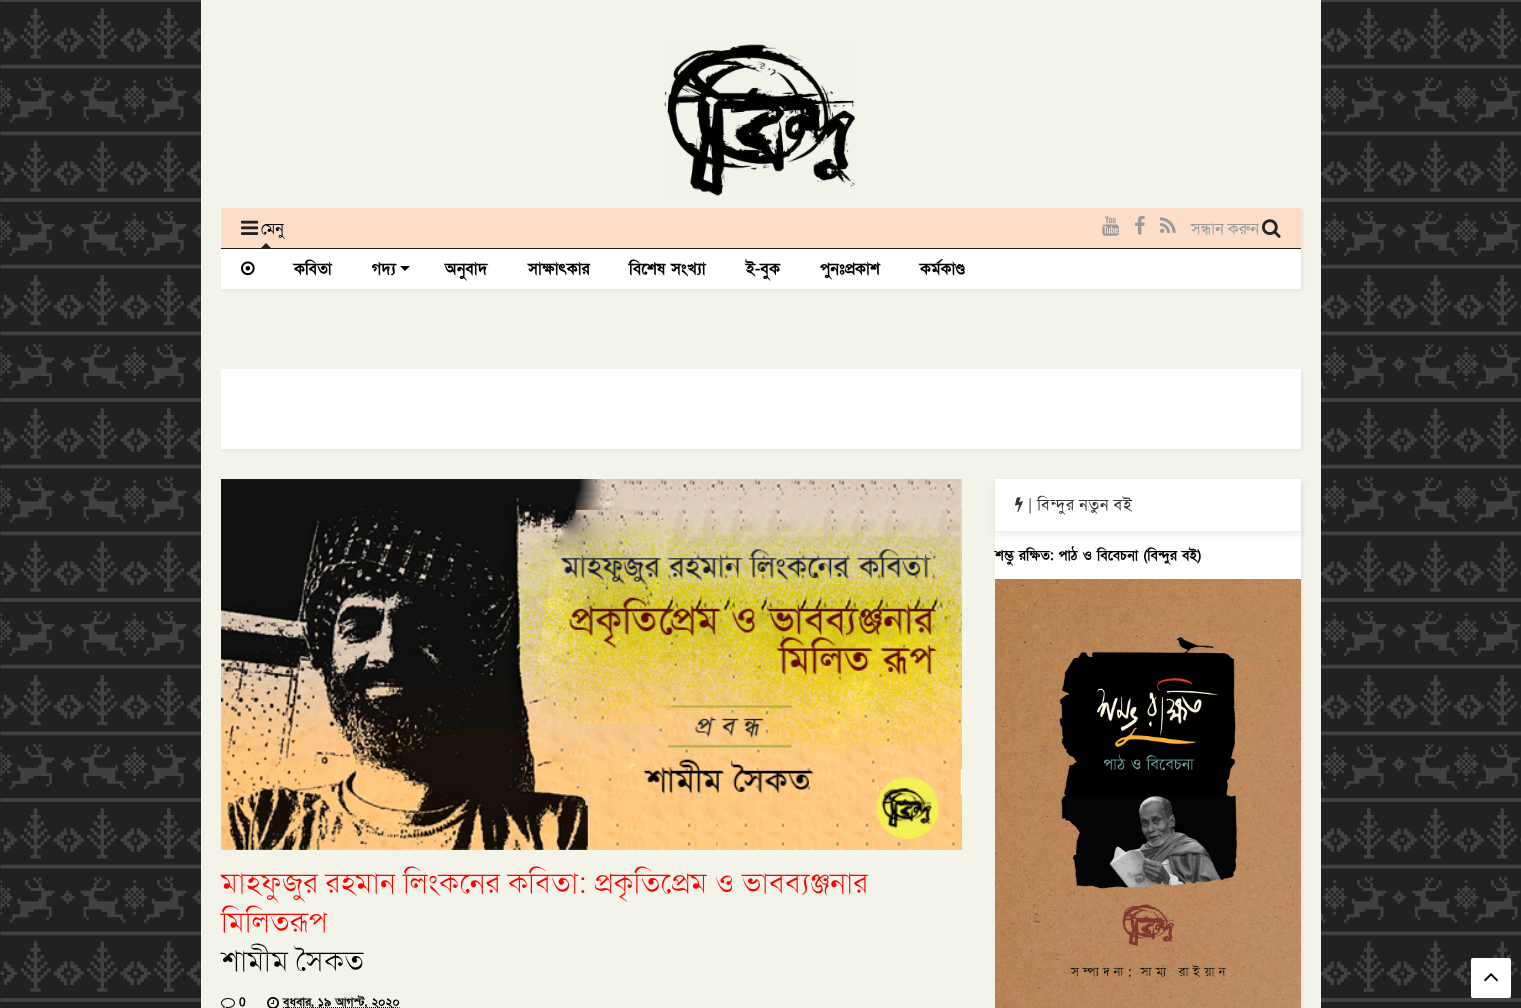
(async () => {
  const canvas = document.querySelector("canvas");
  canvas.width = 1521;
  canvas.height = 1008;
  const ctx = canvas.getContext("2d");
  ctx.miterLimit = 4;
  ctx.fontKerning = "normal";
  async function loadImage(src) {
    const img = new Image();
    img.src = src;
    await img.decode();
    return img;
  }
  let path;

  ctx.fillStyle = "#ffffff";
  ctx.fillRect(0, 0, 1521, 1008);
  ctx.drawImage(await loadImage("img/1.png"), 0, 0, 1521, 1008);
  ctx.fillStyle = "#f3f3e9";
  ctx.fillRect(201, 0, 1120, 1008);
  ctx.drawImage(await loadImage("img/2.png"), 664, 44, 192, 153);
  ctx.fillStyle = "rgba(0, 0, 0, 0.05)";
  ctx.filter = "blur(1.5px)";
  ctx.beginPath();
  ctx.rect(223, 210, 1080, 81);
  ctx.fill();
  ctx.filter = "none";
  ctx.fillStyle = "#fcddc8";
  ctx.fillRect(221, 208, 1080, 40);
  ctx.drawImage(await loadImage("img/3.png"), 241, 220, 18, 15);
  ctx.fillStyle = "#222222";
  path = new Path2D("M271 248H261L266 243Z");
  ctx.fill(path);
  ctx.drawImage(await loadImage("img/4.png"), 1102, 215, 17, 21);
  ctx.drawImage(await loadImage("img/5.png"), 1135, 215, 10, 20);
  ctx.drawImage(await loadImage("img/6.png"), 1160, 217, 16, 16);
  ctx.drawImage(await loadImage("img/7.png"), 1262, 219, 19, 19);
  ctx.fillStyle = "#ffffff";
  ctx.fillRect(221, 249, 1080, 40);
  ctx.fillStyle = "#222222";
  ctx.fillRect(221, 248, 1080, 1);
  ctx.drawImage(await loadImage("img/8.png"), 241, 261, 14, 15);
  ctx.fillStyle = "#000000";
  path = new Path2D("M400 266H410L405 271Z");
  ctx.fill(path);
  ctx.fillStyle = "rgba(0, 0, 0, 0.05)";
  ctx.filter = "blur(1.5px)";
  ctx.beginPath();
  ctx.rect(223, 371, 1080, 80);
  ctx.fill();
  ctx.filter = "none";
  ctx.fillStyle = "#ffffff";
  ctx.fillRect(221, 369, 1080, 80);
  ctx.fillStyle = "rgba(0, 0, 0, 0.05)";
  ctx.filter = "blur(1.5px)";
  ctx.beginPath();
  ctx.rect(997, 481, 306, 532);
  ctx.fill();
  ctx.filter = "none";
  ctx.fillStyle = "#ffffff";
  ctx.fillRect(995, 479, 306, 100);
  ctx.save();
  path = new Path2D("M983 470H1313V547H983ZM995 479H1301V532H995Z");
  ctx.clip(path, "evenodd");
  ctx.fillStyle = "rgba(0, 0, 0, 0.07)";
  ctx.filter = "blur(3.5px)";
  ctx.beginPath();
  ctx.rect(995, 482, 306, 53);
  ctx.fill();
  ctx.filter = "none";
  ctx.restore();
  ctx.fillStyle = "#eeeeee";
  ctx.fillRect(995, 531, 306, 1);
  ctx.drawImage(await loadImage("img/9.png"), 1015, 497, 8, 16);
  ctx.drawImage(await loadImage("img/10.png"), 995, 579, 306, 429);
  ctx.drawImage(await loadImage("img/11.png"), 221, 479, 741, 371);
  ctx.drawImage(await loadImage("img/12.png"), 221, 998, 14, 10);
  ctx.drawImage(await loadImage("img/13.png"), 267, 997, 12, 11);
  path = new Path2D("M283 1007.5H399.5");
  ctx.strokeStyle = "#000000";
  ctx.setLineDash([1, 1]);
  ctx.stroke(path);
  ctx.fillStyle = "#ffffff";
  ctx.beginPath();
  ctx.roundRect(1471, 958, 40, 40, 2);
  ctx.fill();
  ctx.drawImage(await loadImage("img/14.png"), 1484, 973, 14, 9);
  ctx.font = "16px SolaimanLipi";
  ctx.fillStyle = "#000000";
  ctx.fillText("মেনু", 261, 234);
  ctx.fillStyle = "#999999";
  ctx.fillText("সন্ধান করুন", 1191, 234);
  ctx.font = "bold 16px SolaimanLipi";
  ctx.fillStyle = "#000000";
  for (const [text, x, y] of [
    ["কবিতা", 294, 274],
    ["গদ্য", 372, 274],
    ["অনুবাদ", 445, 274],
    ["সাক্ষাৎকার", 528, 274],
    ["বিশেষ সংখ্যা", 629, 274],
    ["ই-বুক", 746, 274],
    ["পুনঃপ্রকাশ", 820, 274],
    ["কর্মকাণ্ড", 920, 274],
  ]) {
    ctx.fillText(text, x, y);
  }
  ctx.letterSpacing = "1px";
  ctx.wordSpacing = "-1px";
  ctx.font = "16px SolaimanLipi";
  ctx.fillStyle = "#333333";
  ctx.fillText("| বিন্দুর নতুন বই", 1028, 510);
  ctx.letterSpacing = "0px";
  ctx.wordSpacing = "0px";
  ctx.font = "bold 14px SolaimanLipi";
  ctx.fillStyle = "#000000";
  ctx.fillText("শম্ভু রক্ষিত: পাঠ ও বিবেচনা (বিন্দুর বই)", 995, 560);
  ctx.font = "100 30px SolaimanLipi";
  ctx.fillStyle = "#ff0000";
  ctx.fillText("মাহফুজুর রহমান লিংকনের কবিতা: প্রকৃতিপ্রেম ও ভাবব্যঞ্জনার", 221, 893);
  ctx.fillText("মিলিতরূপ", 221, 932);
  ctx.fillStyle = "#000000";
  ctx.fillText("শামীম সৈকত", 221, 971);
  ctx.font = "bold 12px SolaimanLipi";
  ctx.fillText("0", 239, 1006);
  ctx.fillText("বুধবার, ১৯ আগস্ট, ২০২০", 283, 1006);
})();
